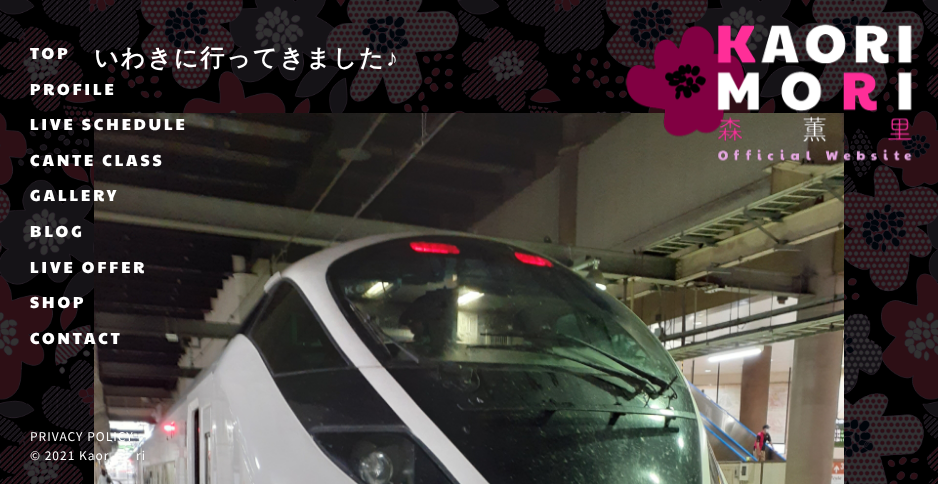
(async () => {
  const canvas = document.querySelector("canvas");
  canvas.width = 938;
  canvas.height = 484;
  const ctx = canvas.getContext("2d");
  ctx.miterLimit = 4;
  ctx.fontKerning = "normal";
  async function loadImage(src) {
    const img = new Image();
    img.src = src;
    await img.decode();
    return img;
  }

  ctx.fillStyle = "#000000";
  ctx.fillRect(0, 0, 938, 484);
  ctx.drawImage(await loadImage("img/1.png"), 0, 0, 938, 484);
  ctx.drawImage(await loadImage("img/2.png"), 94, 113, 750, 371);
  ctx.drawImage(await loadImage("img/3.png"), 625, 24, 287, 137);
  ctx.letterSpacing = "2px";
  ctx.font = "bold 24px WenQuanYi Zen Hei";
  ctx.fillStyle = "#ffffff";
  ctx.fillText("いわきに行ってきました", 94, 66);
  ctx.font = "bold 24px Liberation Sans";
  ctx.fillText("♪", 386, 66);
  ctx.letterSpacing = "3px";
  ctx.font = "16px Paytone One";
  for (const [text, x, y] of [
    ["TOP", 30, 59],
    ["PROFILE", 30, 95],
    ["LIVE SCHEDULE", 30, 130],
    ["CANTE CLASS", 30, 166],
    ["GALLERY", 30, 201],
    ["BLOG", 30, 237],
    ["LIVE OFFER", 30, 273],
    ["SHOP", 30, 308],
    ["CONTACT", 30, 344],
  ]) {
    ctx.fillText(text, x, y);
  }
  ctx.letterSpacing = "1px";
  ctx.font = "12px Noto Sans JP";
  for (const [text, x, y] of [
    ["PRIVACY POLICY", 30, 441],
    ["© 2021 Kaor", 30, 460],
    ["ri", 136, 460],
  ]) {
    ctx.fillText(text, x, y);
  }
})();
